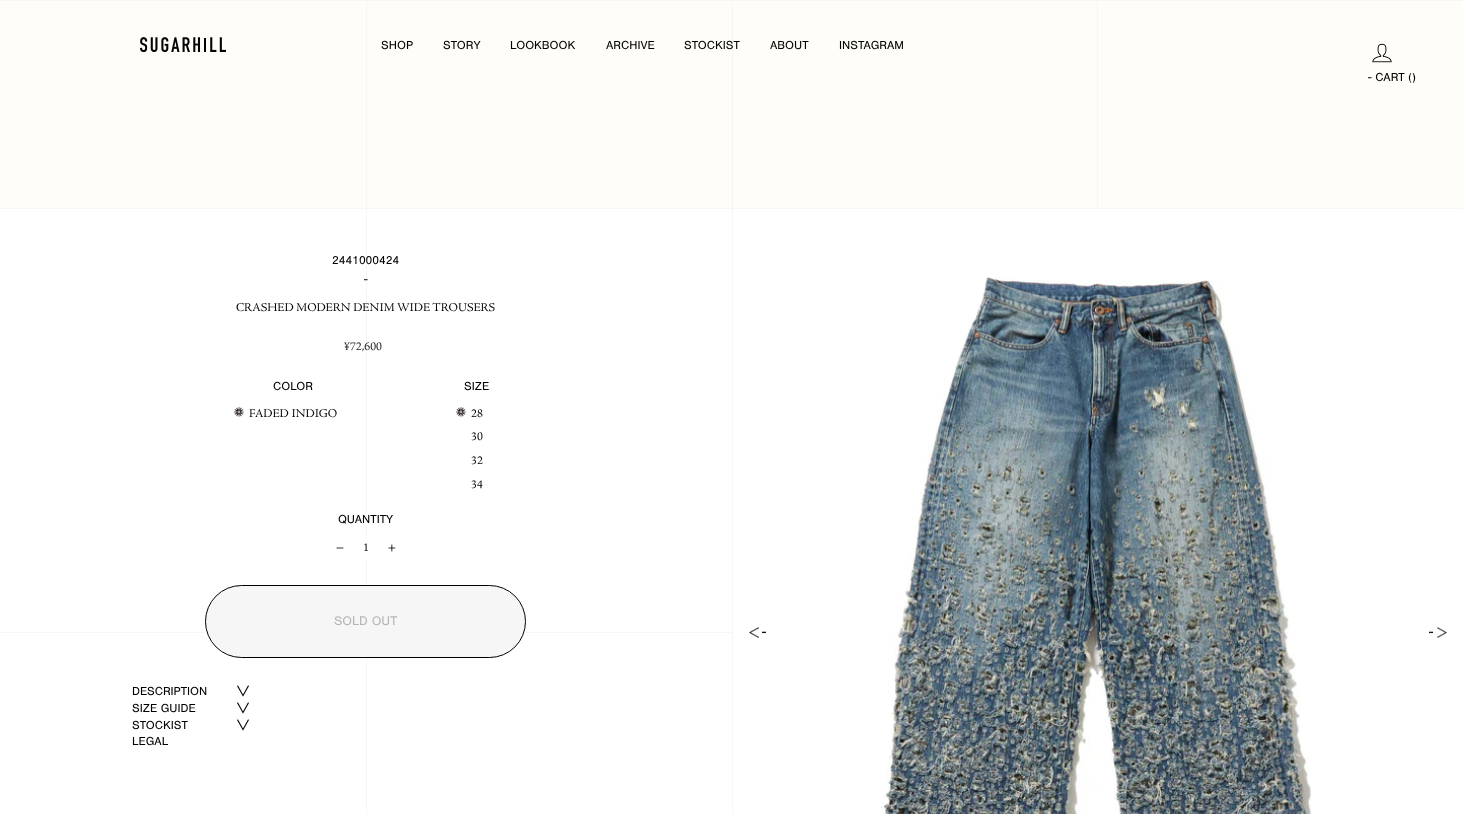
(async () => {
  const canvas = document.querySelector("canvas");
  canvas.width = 1463;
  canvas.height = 814;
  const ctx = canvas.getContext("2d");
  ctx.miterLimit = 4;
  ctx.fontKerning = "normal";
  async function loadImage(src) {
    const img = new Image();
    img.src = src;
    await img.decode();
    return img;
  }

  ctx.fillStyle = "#ffffff";
  ctx.fillRect(0, 0, 1463, 814);
  ctx.fillStyle = "#fefdf8";
  ctx.fillRect(0, 1, 1463, 207);
  ctx.drawImage(await loadImage("img/1.png"), 140, 37, 86, 15);
  ctx.drawImage(await loadImage("img/2.png"), 1372, 43, 20, 20);
  for (const [x, y, w, h, color] of [
    [0, 0, 1463, 1, "#f6f6f6"],
    [1097, 0, 1, 209, "#f6f6f6"],
    [732, 0, 1, 209, "#f6f6f6"],
    [366, 0, 1, 209, "#f6f6f6"],
    [0, 208, 1463, 1, "#f6f6f6"],
    [0, 632, 732, 1, "#f6f6f6"],
    [732, 208, 1, 606, "#f6f6f6"],
    [366, 208, 1, 606, "#f6f6f6"],
  ]) {
    ctx.fillStyle = color;
    ctx.fillRect(x, y, w, h);
  }
  ctx.drawImage(await loadImage("img/3.png"), 234, 407, 10, 10);
  ctx.drawImage(await loadImage("img/4.png"), 456, 407, 10, 10);
  ctx.fillStyle = "#ffffff";
  ctx.fillRect(366, 536, 1, 24);
  ctx.drawImage(await loadImage("img/5.png"), 336, 547, 8, 2);
  ctx.drawImage(await loadImage("img/6.png"), 388, 544, 8, 8);
  ctx.fillStyle = "#f6f6f6";
  ctx.beginPath();
  ctx.roundRect(205.5, 585.5, 320, 72, 36);
  ctx.fill();
  ctx.strokeStyle = "#000000";
  ctx.stroke();
  ctx.drawImage(await loadImage("img/7.png"), 237, 685, 12, 12);
  ctx.drawImage(await loadImage("img/7.png"), 237, 702, 12, 12);
  ctx.drawImage(await loadImage("img/7.png"), 237, 719, 12, 12);
  ctx.drawImage(await loadImage("img/8.png"), 749, 627, 17, 11);
  ctx.drawImage(await loadImage("img/9.png"), 881, 277, 432, 537);
  ctx.drawImage(await loadImage("img/10.png"), 1429, 627, 18, 11);
  ctx.font = "12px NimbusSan";
  ctx.fillStyle = "#000000";
  for (const [text, x, y] of [
    ["SHOP", 381, 49],
    ["STORY", 443, 49],
    ["LOOKBOOK", 510, 49],
    ["ARCHIVE", 606, 49],
    ["STOCKIST", 684, 49],
    ["ABOUT", 770, 49],
    ["INSTAGRAM", 839, 49],
    ["- CART ()", 1368, 81],
    ["2441000424", 332, 264],
    ["-", 364, 283],
  ]) {
    ctx.fillText(text, x, y);
  }
  ctx.font = "12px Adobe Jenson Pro";
  ctx.fillText("CRASHED MODERN DENIM WIDE TROUSERS", 236, 311);
  ctx.fillStyle = "#1c1d1d";
  ctx.fillText("¥72,600", 344, 350);
  ctx.font = "12px NimbusSan";
  ctx.fillStyle = "#000000";
  ctx.fillText("COLOR", 273, 390);
  ctx.font = "12px Adobe Jenson Pro";
  ctx.fillText("FADED INDIGO", 249, 417);
  ctx.font = "12px NimbusSan";
  ctx.fillText("SIZE", 464, 390);
  ctx.font = "12px Adobe Jenson Pro";
  for (const [text, x, y] of [
    ["28", 471, 417],
    ["30", 471, 440],
    ["32", 471, 464],
    ["34", 471, 488],
  ]) {
    ctx.fillText(text, x, y);
  }
  ctx.font = "12px NimbusSan";
  ctx.fillText("QUANTITY", 338, 523);
  ctx.font = "12px Adobe Jenson Pro";
  ctx.fillText("1", 363, 551);
  ctx.font = "13px NimbusSan";
  ctx.fillStyle = "#b6b6b6";
  ctx.fillText("SOLD OUT", 334, 625);
  ctx.font = "12px NimbusSan";
  ctx.fillStyle = "#000000";
  for (const [text, x, y] of [
    ["DESCRIPTION", 132, 695],
    ["SIZE GUIDE", 132, 712],
    ["STOCKIST", 132, 729],
    ["LEGAL", 132, 745],
  ]) {
    ctx.fillText(text, x, y);
  }
})();
